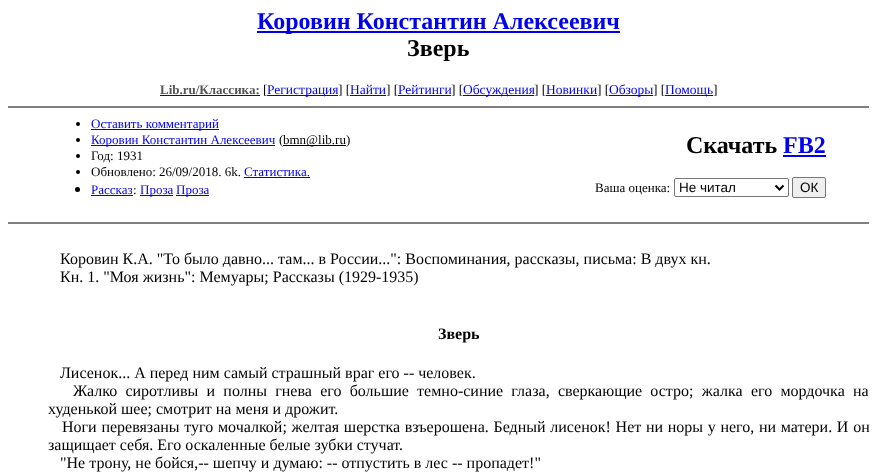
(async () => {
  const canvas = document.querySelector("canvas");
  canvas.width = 877;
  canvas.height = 476;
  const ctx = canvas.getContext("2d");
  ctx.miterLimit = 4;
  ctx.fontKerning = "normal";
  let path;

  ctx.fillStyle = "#ffffff";
  ctx.fillRect(0, 0, 877, 476);
  for (const [x, y, w, h, color] of [
    [257, 31, 363, 2, "#0000ee"],
    [160, 95, 100, 1, "#0000ee"],
    [267, 95, 71, 1, "#0000ee"],
    [350, 95, 36, 1, "#0000ee"],
    [398, 95, 53, 1, "#0000ee"],
    [463, 95, 71, 1, "#0000ee"],
    [546, 95, 51, 1, "#0000ee"],
    [609, 95, 44, 1, "#0000ee"],
    [665, 95, 48, 1, "#0000ee"],
    [8, 106, 861, 2, "#808080"],
  ]) {
    ctx.fillStyle = color;
    ctx.fillRect(x, y, w, h);
  }
  ctx.fillStyle = "#000000";
  ctx.beginPath();
  ctx.arc(78, 124, 2, 0, Math.PI * 2);
  ctx.fill();
  ctx.fillStyle = "#0000ee";
  ctx.fillRect(91, 129, 128, 1);
  ctx.fillStyle = "#000000";
  ctx.beginPath();
  ctx.arc(78, 140, 2, 0, Math.PI * 2);
  ctx.fill();
  ctx.fillStyle = "#0000ee";
  ctx.fillRect(91, 145, 184, 1);
  ctx.fillStyle = "#000000";
  ctx.fillRect(283, 145, 63, 1);
  ctx.beginPath();
  ctx.arc(78, 156, 2, 0, Math.PI * 2);
  ctx.fill();
  ctx.beginPath();
  ctx.arc(78, 172, 2, 0, Math.PI * 2);
  ctx.fill();
  ctx.fillStyle = "#0000ee";
  ctx.fillRect(244, 177, 66, 1);
  ctx.fillStyle = "#000000";
  ctx.beginPath();
  ctx.arc(77.5, 189.5, 2.5, 0, Math.PI * 2);
  ctx.fill();
  for (const [x, y, w, h, color] of [
    [91, 195, 42, 1, "#0000ee"],
    [140, 195, 33, 1, "#0000ee"],
    [176, 195, 33, 1, "#0000ee"],
    [783, 155, 43, 2, "#0000ee"],
  ]) {
    ctx.fillStyle = color;
    ctx.fillRect(x, y, w, h);
  }
  ctx.beginPath();
  ctx.roundRect(674.5, 178.5, 114, 18, 1.5);
  ctx.strokeStyle = "#767676";
  ctx.stroke();
  path = new Path2D("M775.5 185.5L779.5 189.5L783.5 185.5");
  ctx.strokeStyle = "#000000";
  ctx.lineWidth = 2;
  ctx.stroke(path);
  ctx.fillStyle = "#efefef";
  ctx.beginPath();
  ctx.roundRect(792.5, 177.5, 33, 20, 1.5);
  ctx.fill();
  ctx.strokeStyle = "#767676";
  ctx.lineWidth = 1;
  ctx.stroke();
  ctx.fillStyle = "#808080";
  ctx.fillRect(8, 222, 861, 2);
  ctx.font = "bold 24px Liberation Serif";
  ctx.fillStyle = "#0000ee";
  ctx.fillText("Коровин Константин Алексеевич", 257, 29);
  ctx.fillStyle = "#000000";
  ctx.fillText("Зверь", 407, 56);
  ctx.font = "bold 13px Liberation Serif";
  ctx.fillStyle = "#555555";
  ctx.fillText("Lib.ru/Классика:", 160, 94);
  ctx.font = "13.5px Liberation Serif";
  ctx.fillStyle = "#000000";
  ctx.fillText("[", 263, 94);
  ctx.fillStyle = "#0000ee";
  ctx.fillText("Регистрация", 267, 94);
  ctx.fillStyle = "#000000";
  ctx.fillText("] [", 338, 94);
  ctx.fillStyle = "#0000ee";
  ctx.fillText("Найти", 350, 94);
  ctx.fillStyle = "#000000";
  ctx.fillText("] [", 386, 94);
  ctx.fillStyle = "#0000ee";
  ctx.fillText("Рейтинги", 398, 94);
  ctx.fillStyle = "#000000";
  ctx.fillText("] [", 451, 94);
  ctx.fillStyle = "#0000ee";
  ctx.fillText("Обсуждения", 463, 94);
  ctx.fillStyle = "#000000";
  ctx.fillText("] [", 534, 94);
  ctx.fillStyle = "#0000ee";
  ctx.fillText("Новинки", 546, 94);
  ctx.fillStyle = "#000000";
  ctx.fillText("] [", 597, 94);
  ctx.fillStyle = "#0000ee";
  ctx.fillText("Обзоры", 609, 94);
  ctx.fillStyle = "#000000";
  ctx.fillText("] [", 653, 94);
  ctx.fillStyle = "#0000ee";
  ctx.fillText("Помощь", 665, 94);
  ctx.fillStyle = "#000000";
  ctx.fillText("]", 713, 94);
  ctx.font = "13px Liberation Serif";
  ctx.fillStyle = "#0000ee";
  ctx.fillText("Оставить комментарий", 91, 128);
  ctx.fillText("Коровин Константин Алексеевич", 91, 144);
  ctx.fillStyle = "#000000";
  for (const [text, x, y] of [
    ["(", 279, 144],
    ["bmn@lib.ru)", 283, 144],
    ["Год: 1931", 91, 160],
    ["Обновлено: 26/09/2018. 6k.", 91, 176],
  ]) {
    ctx.fillText(text, x, y);
  }
  ctx.fillStyle = "#0000ee";
  ctx.fillText("Статистика.", 244, 176);
  ctx.fillText("Рассказ", 91, 194);
  ctx.fillStyle = "#000000";
  ctx.fillText(":", 133, 194);
  ctx.fillStyle = "#0000ee";
  ctx.fillText("Проза", 140, 194);
  ctx.fillText("Проза", 176, 194);
  ctx.font = "bold 24px Liberation Serif";
  ctx.fillStyle = "#000000";
  ctx.fillText("Скачать", 686, 153);
  ctx.fillStyle = "#0000ee";
  ctx.fillText("FB2", 783, 153);
  ctx.font = "13px Liberation Serif";
  ctx.fillStyle = "#000000";
  ctx.fillText("Ваша оценка:", 595, 192);
  ctx.font = "13.5px Liberation Sans";
  ctx.fillText("Не читал", 679, 192);
  ctx.fillText("ОК", 800, 192);
  ctx.font = "16px Liberation Serif";
  ctx.fillText("Коровин К.А. \"То было давно... там... в России...\": Воспоминания, рассказы, письма: В двух кн.", 60, 264);
  ctx.fillText("Кн. 1. \"Моя жизнь\": Мемуары; Рассказы (1929-1935)", 60, 282);
  ctx.font = "bold 16px Liberation Serif";
  ctx.fillText("Зверь", 438, 339);
  ctx.font = "16px Liberation Serif";
  ctx.fillText("Лисенок... А перед ним самый страшный враг его -- человек.", 60, 378);
  ctx.wordSpacing = "4.25px";
  ctx.fillText("Жалко сиротливы и полны гнева его большие темно-синие глаза, сверкающие остро; жалка его мордочка на", 73, 396);
  ctx.wordSpacing = "0px";
  ctx.fillText("худенькой шее; смотрит на меня и дрожит.", 48, 414);
  ctx.wordSpacing = "0.7px";
  ctx.fillText("Ноги перевязаны туго мочалкой; желтая шерстка взъерошена. Бедный лисенок! Нет ни норы у него, ни матери. И он", 62, 432);
  ctx.wordSpacing = "0px";
  ctx.fillText("защищает себя. Его оскаленные белые зубки стучат.", 48, 450);
  ctx.fillText("\"Не трону, не бойся,-- шепчу и думаю: -- отпустить в лес -- пропадет!\"", 60, 468);
})();
